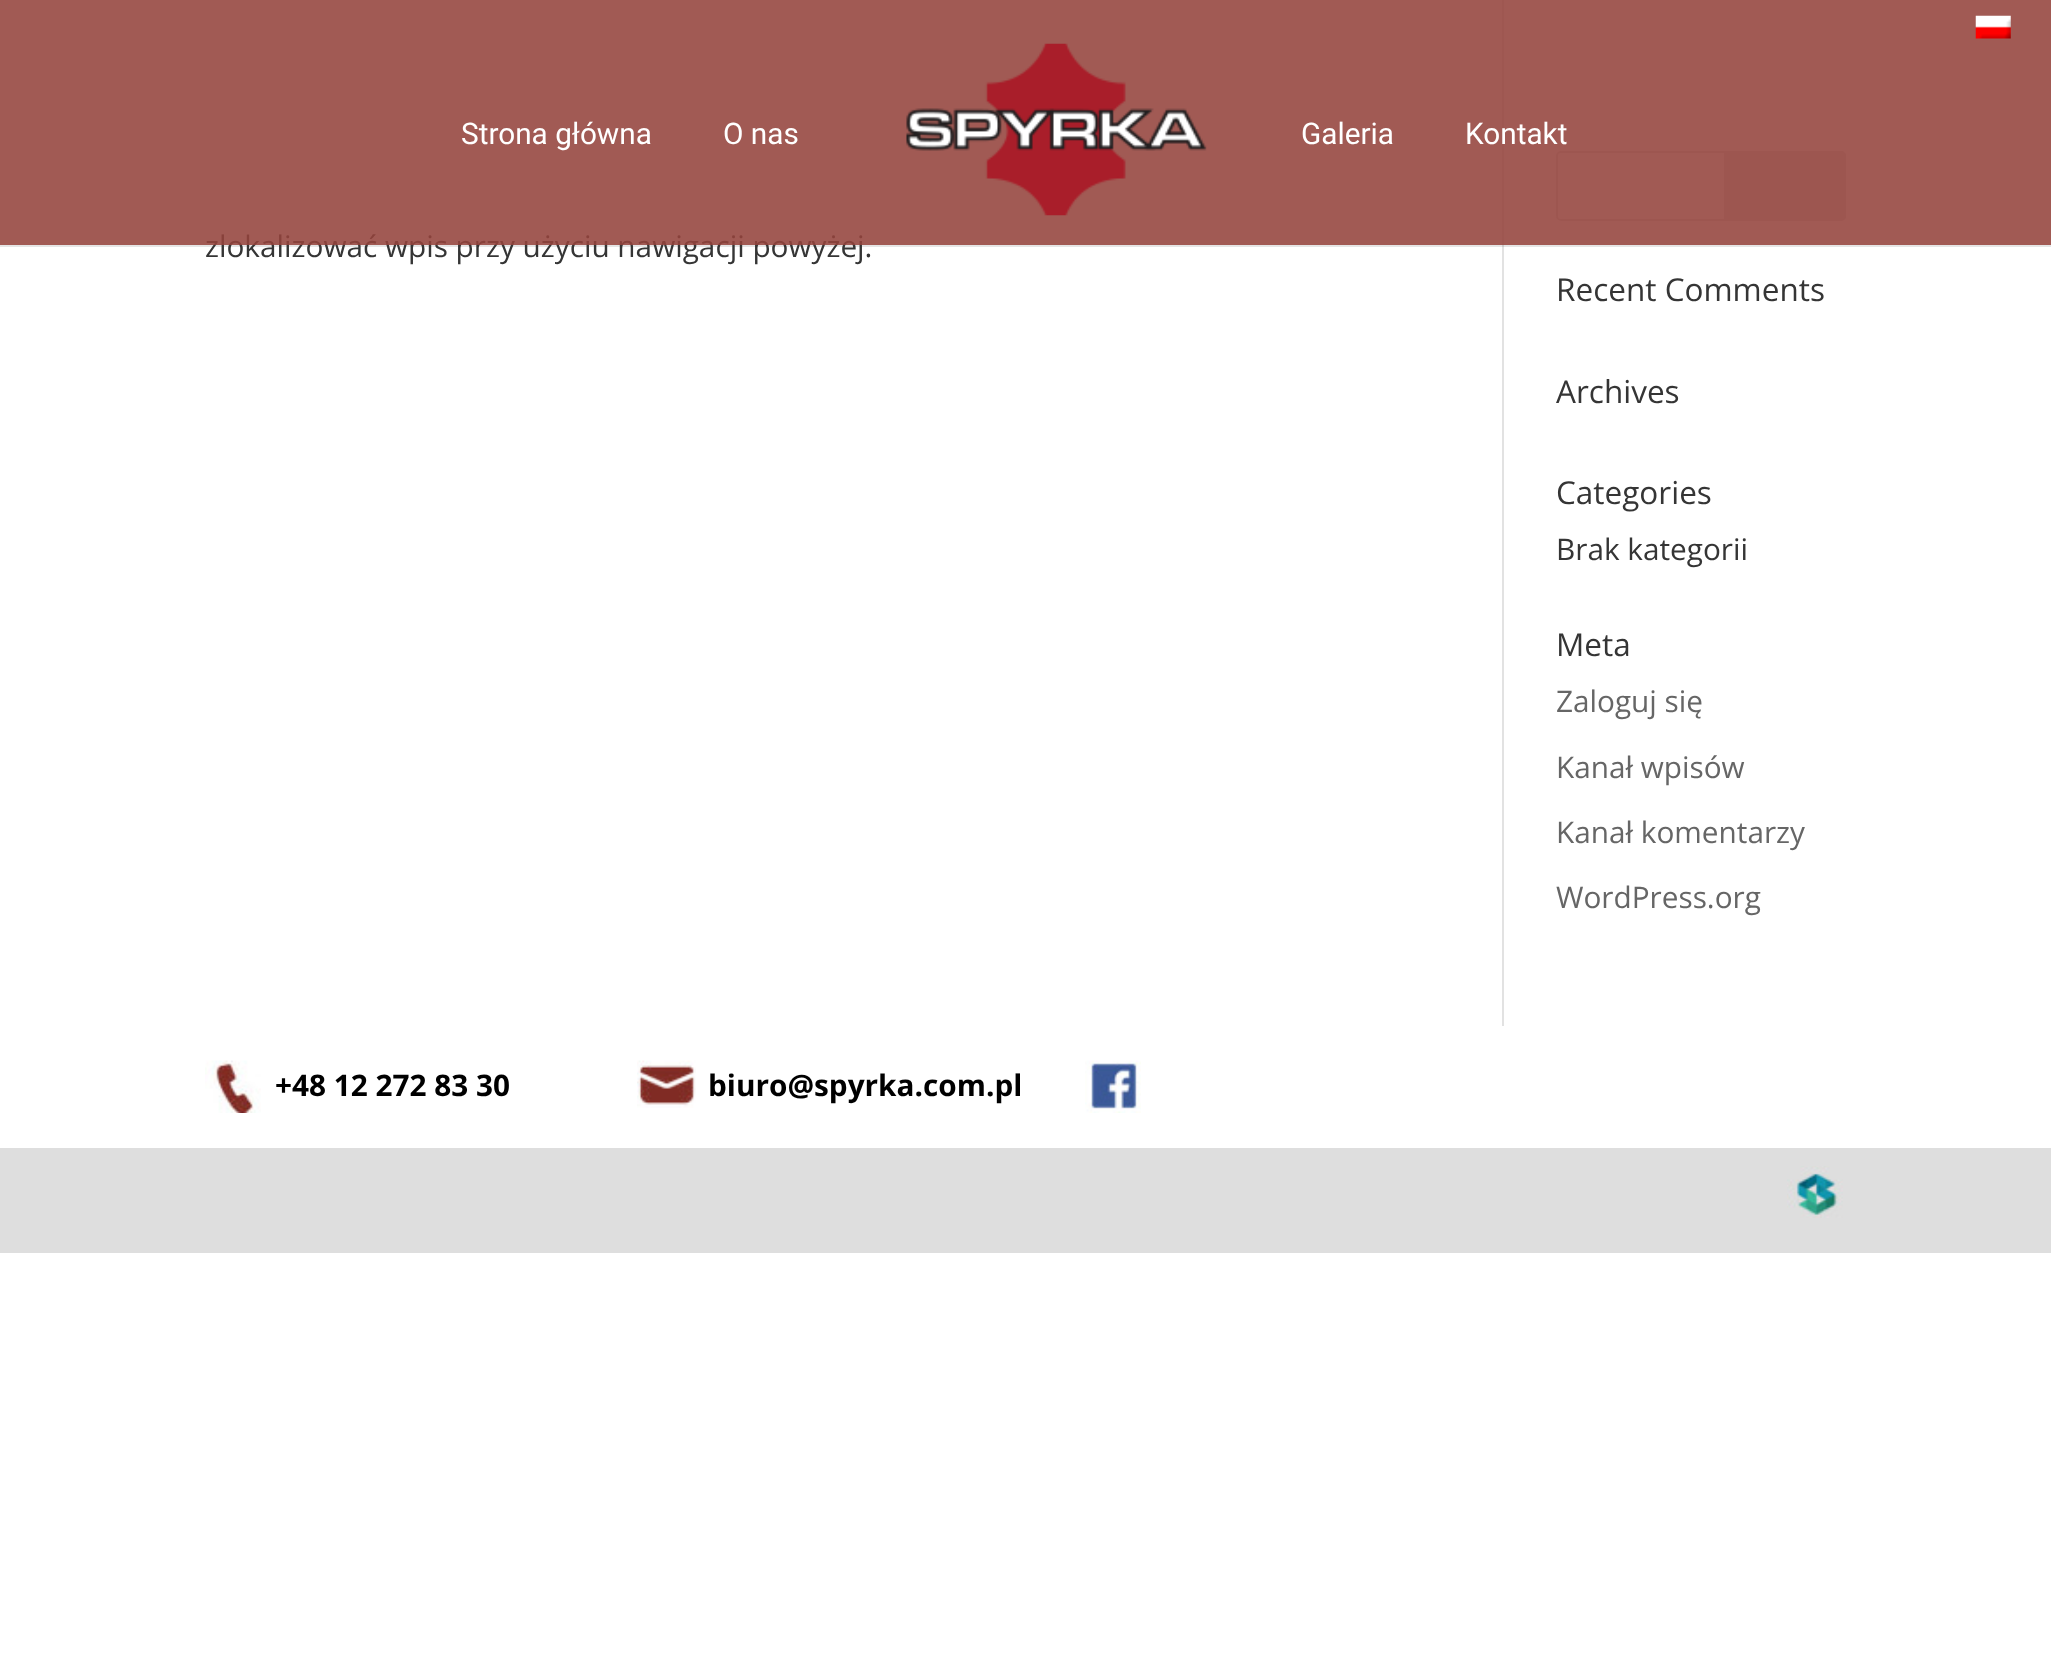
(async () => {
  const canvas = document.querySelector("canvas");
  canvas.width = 2051;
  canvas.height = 1677;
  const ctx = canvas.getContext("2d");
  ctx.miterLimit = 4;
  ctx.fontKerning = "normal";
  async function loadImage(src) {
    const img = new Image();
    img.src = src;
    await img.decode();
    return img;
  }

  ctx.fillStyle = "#ffffff";
  ctx.fillRect(0, 0, 2051, 1677);
  ctx.fillStyle = "#e2e2e2";
  ctx.fillRect(1502, 0, 2, 1026);
  ctx.fillStyle = "rgba(0, 0, 0, 0.1)";
  ctx.fillRect(0, 245, 2051, 2);
  ctx.beginPath();
  ctx.roundRect(1557, 152, 288, 68, 4);
  ctx.strokeStyle = "#dddddd";
  ctx.lineWidth = 2;
  ctx.stroke();
  ctx.fillStyle = "#dddddd";
  ctx.beginPath();
  ctx.roundRect(1725, 152, 120, 68, [0, 4, 4, 0]);
  ctx.fill();
  ctx.stroke();
  ctx.drawImage(await loadImage("img/3.png"), 205, 1060, 56, 53);
  ctx.drawImage(await loadImage("img/4.png"), 637, 1060, 59, 48);
  ctx.drawImage(await loadImage("img/5.png"), 1085, 1060, 56, 53);
  ctx.fillStyle = "#dedede";
  ctx.fillRect(0, 1148, 2051, 105);
  ctx.drawImage(await loadImage("img/6.png"), 1787, 1166, 56, 52);
  ctx.font = "29.75px Open Sans";
  ctx.fillStyle = "#353535";
  ctx.fillText("zlokalizować wpis przy użyciu nawigacji powyżej.", 205, 257);
  ctx.fillStyle = "rgba(148, 67, 60, 0.88)";
  ctx.fillRect(0, 0, 2051, 245);
  ctx.drawImage(await loadImage("img/1.png"), 1975, 15, 36, 24);
  ctx.font = "29.75px Roboto";
  ctx.fillStyle = "#ffffff";
  ctx.fillText("Kontakt", 1465, 144);
  ctx.fillText("Galeria", 1301, 144);
  ctx.drawImage(await loadImage("img/2.png"), 906, 43, 301, 173);
  ctx.fillText("O nas", 723, 144);
  ctx.fillText("Strona główna", 461, 144);
  ctx.font = "31.5px Open Sans";
  ctx.fillStyle = "#353535";
  for (const [text, x, y] of [
    ["Recent Comments", 1556, 301],
    ["Archives", 1556, 403],
    ["Categories", 1556, 504],
  ]) {
    ctx.fillText(text, x, y);
  }
  ctx.font = "29.75px Open Sans";
  ctx.fillText("Brak kategorii", 1556, 560);
  ctx.font = "31.5px Open Sans";
  ctx.fillText("Meta", 1556, 656);
  ctx.font = "29.75px Open Sans";
  ctx.fillStyle = "#666666";
  for (const [text, x, y] of [
    ["Zaloguj się", 1556, 712],
    ["Kanał wpisów", 1556, 778],
    ["Kanał komentarzy", 1556, 843],
    ["WordPress.org", 1556, 908],
  ]) {
    ctx.fillText(text, x, y);
  }
  ctx.font = "bold 29.75px Open Sans";
  ctx.fillStyle = "#000000";
  ctx.fillText("+48 12 272 83 30", 275, 1096);
  ctx.fillText("biuro@spyrka.com.pl", 708, 1096);
})();
